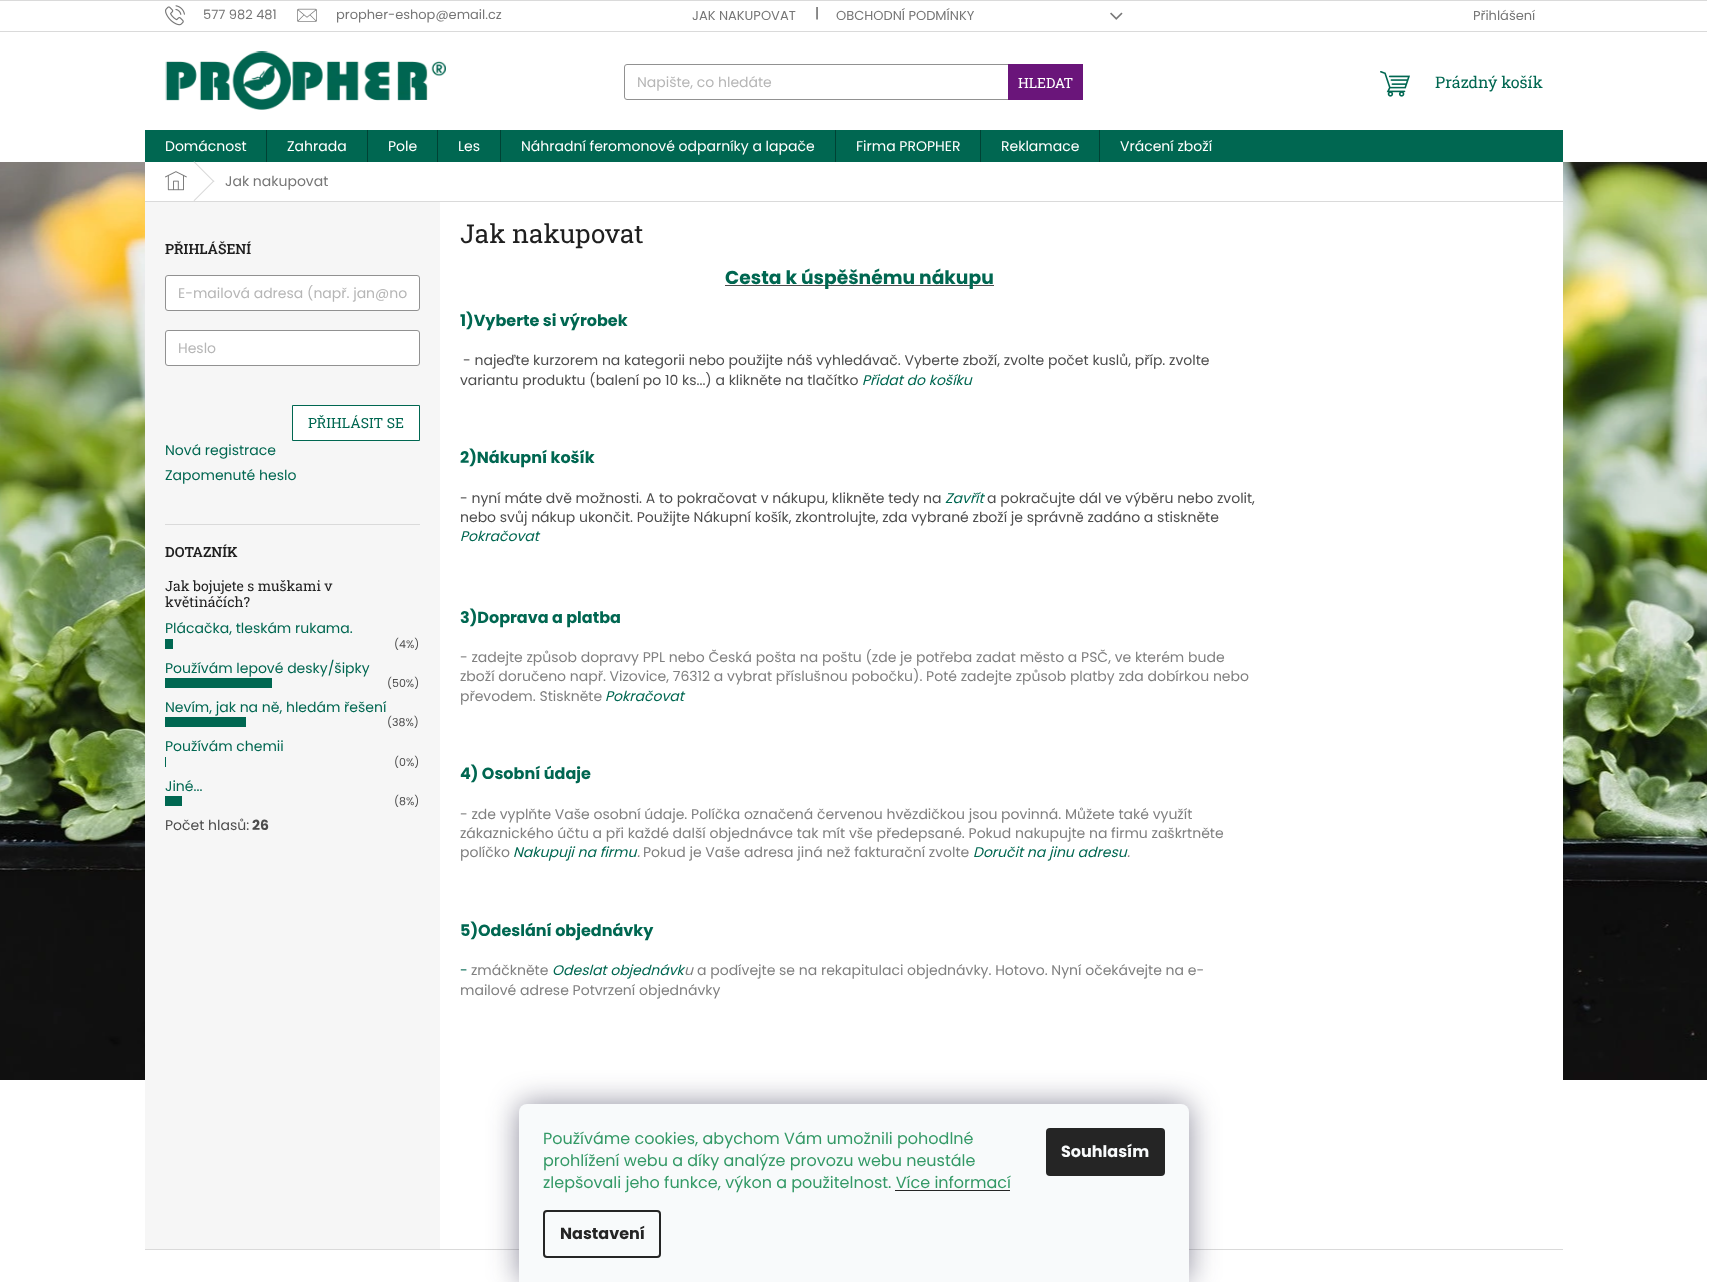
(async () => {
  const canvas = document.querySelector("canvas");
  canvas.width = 1722;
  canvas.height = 1282;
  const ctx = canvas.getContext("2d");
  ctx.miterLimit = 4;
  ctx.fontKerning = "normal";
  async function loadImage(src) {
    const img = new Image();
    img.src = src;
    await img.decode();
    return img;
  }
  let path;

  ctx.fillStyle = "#ffffff";
  ctx.fillRect(0, 0, 1722, 1282);
  ctx.drawImage(await loadImage("img/1.png"), 0, 162, 1707, 918);
  ctx.fillStyle = "#dadada";
  ctx.fillRect(0, 0, 1707, 1);
  ctx.fillRect(0, 31, 1707, 1);
  ctx.drawImage(await loadImage("img/2.png"), 165, 5, 20, 21);
  ctx.drawImage(await loadImage("img/3.png"), 297, 8, 20, 14);
  ctx.drawImage(await loadImage("img/4.png"), 1110, 12, 13, 8);
  ctx.drawImage(await loadImage("img/5.png"), 165, 51, 281, 59);
  ctx.beginPath();
  ctx.roundRect(624.5, 64.5, 458, 35, 2.5);
  ctx.strokeStyle = "#919191";
  ctx.stroke();
  ctx.fillStyle = "#6a157a";
  ctx.fillRect(1008, 64, 75, 36);
  ctx.drawImage(await loadImage("img/6.png"), 1380, 71, 30, 26);
  for (const [x, y, w, h, color] of [
    [145, 130, 1418, 32, "#006751"],
    [266, 130, 1, 32, "#004234"],
    [367, 130, 1, 32, "#004234"],
    [437, 130, 1, 32, "#004234"],
    [500, 130, 1, 32, "#004234"],
    [835, 130, 1, 32, "#004234"],
    [980, 130, 1, 32, "#004234"],
    [1099, 130, 1, 32, "#004234"],
    [145, 162, 1418, 39, "#ffffff"],
    [145, 201, 1418, 1, "#dadada"],
  ]) {
    ctx.fillStyle = color;
    ctx.fillRect(x, y, w, h);
  }
  ctx.drawImage(await loadImage("img/7.png"), 165, 171, 22, 20);
  path = new Path2D("M193.5 162L194.5 161.5L214.5 181.5L213.5 182Z");
  ctx.fill(path);
  path = new Path2D("M213.5 180.5L214.5 181L194.5 201L193.5 200.5Z");
  ctx.fill(path);
  for (const [x, y, w, h, color] of [
    [440, 202, 1123, 878, "#ffffff"],
    [145, 202, 295, 1047, "#f6f6f6"],
    [165, 524, 255, 1, "#dadada"],
  ]) {
    ctx.fillStyle = color;
    ctx.fillRect(x, y, w, h);
  }
  ctx.fillStyle = "#ffffff";
  ctx.beginPath();
  ctx.roundRect(165.5, 275.5, 254, 35, 2.5);
  ctx.fill();
  ctx.stroke();
  ctx.beginPath();
  ctx.roundRect(165.5, 330.5, 254, 35, 2.5);
  ctx.fill();
  ctx.stroke();
  ctx.beginPath();
  ctx.rect(292.5, 405.5, 127, 35);
  ctx.fill();
  ctx.strokeStyle = "#006751";
  ctx.stroke();
  for (const [x, y, w, h, color] of [
    [165, 639, 8, 10, "#006751"],
    [165, 678, 107, 10, "#006751"],
    [165, 717, 81, 10, "#006751"],
    [165, 757, 1, 10, "#006751"],
    [165, 796, 17, 10, "#006751"],
    [725, 285, 269, 1, "#4d4d4d"],
    [145, 1249, 1418, 1, "#dadada"],
  ]) {
    ctx.fillStyle = color;
    ctx.fillRect(x, y, w, h);
  }
  ctx.fillStyle = "rgba(27, 25, 57, 0.5)";
  ctx.filter = "blur(15px)";
  ctx.beginPath();
  ctx.roundRect(519, 1104, 670, 178, 8);
  ctx.fill();
  ctx.filter = "none";
  ctx.fillStyle = "#f8fafb";
  ctx.beginPath();
  ctx.roundRect(519, 1104, 670, 178, [8, 8, 0, 0]);
  ctx.fill();
  ctx.beginPath();
  ctx.roundRect(544, 1211, 116, 46, 3);
  ctx.strokeStyle = "#252525";
  ctx.lineWidth = 2;
  ctx.stroke();
  ctx.fillStyle = "#252525";
  ctx.beginPath();
  ctx.roundRect(1046, 1128, 119, 48, 4);
  ctx.fill();
  ctx.font = "13px Poppins";
  ctx.fillStyle = "#767676";
  for (const [text, x, y] of [
    ["577 982 481", 203, 19],
    ["propher-eshop@email.cz", 336, 19],
    ["JAK NAKUPOVAT", 692, 20],
  ]) {
    ctx.fillText(text, x, y);
  }
  ctx.font = "14px Poppins";
  ctx.fillStyle = "#4d4d4d";
  ctx.fillText("|", 815, 18);
  ctx.font = "13px Poppins";
  ctx.fillStyle = "#767676";
  ctx.fillText("OBCHODNÍ PODMÍNKY", 836, 20);
  ctx.fillText("Přihlášení", 1473, 20);
  ctx.font = "14px Poppins";
  ctx.fillStyle = "#b6b6b6";
  ctx.fillText("Napište, co hledáte", 637, 87);
  ctx.font = "14px Roboto Slab";
  ctx.fillStyle = "#ffffff";
  ctx.fillText("HLEDAT", 1018, 88);
  ctx.font = "16px Roboto Slab";
  ctx.fillStyle = "#006751";
  ctx.fillText("Prázdný košík", 1435, 88);
  ctx.font = "14px Poppins";
  ctx.fillStyle = "#ffffff";
  for (const [text, x, y] of [
    ["Domácnost", 165, 151],
    ["Zahrada", 287, 151],
    ["Pole", 388, 151],
    ["Les", 458, 151],
    ["Náhradní feromonové odparníky a lapače", 521, 151],
    ["Firma PROPHER", 856, 151],
    ["Reklamace", 1001, 151],
    ["Vrácení zboží", 1120, 151],
  ]) {
    ctx.fillText(text, x, y);
  }
  ctx.fillStyle = "#767676";
  ctx.fillText("Jak nakupovat", 225, 186);
  ctx.font = "600 14px Roboto Slab";
  ctx.fillStyle = "#1f1f1f";
  ctx.fillText("PŘIHLÁŠENÍ", 165, 254);
  ctx.font = "14px Poppins";
  ctx.fillStyle = "#b6b6b6";
  ctx.fillText("E-mailová adresa (např. jan@no", 178, 298);
  ctx.fillText("Heslo", 178, 353);
  ctx.font = "14px Roboto Slab";
  ctx.fillStyle = "#006751";
  ctx.fillText("PŘIHLÁSIT SE", 308, 428);
  ctx.font = "14px Poppins";
  ctx.fillText("Nová registrace", 165, 455);
  ctx.fillText("Zapomenuté heslo", 165, 480);
  ctx.font = "600 14px Roboto Slab";
  ctx.fillStyle = "#1f1f1f";
  ctx.fillText("DOTAZNÍK", 165, 557);
  ctx.font = "14px Roboto Slab";
  ctx.fillText("Jak bojujete s muškami v", 165, 591);
  ctx.fillText("květináčích?", 165, 607);
  ctx.font = "14px Poppins";
  ctx.fillStyle = "#006751";
  ctx.fillText("Plácačka, tleskám rukama.", 165, 633);
  ctx.font = "11px Poppins";
  ctx.fillStyle = "#4d4d4d";
  ctx.fillText("(4%)", 394, 648);
  ctx.font = "14px Poppins";
  ctx.fillStyle = "#006751";
  ctx.fillText("Používám lepové desky/šipky", 165, 673);
  ctx.font = "11px Poppins";
  ctx.fillStyle = "#4d4d4d";
  ctx.fillText("(50%)", 387, 687);
  ctx.font = "14px Poppins";
  ctx.fillStyle = "#006751";
  ctx.fillText("Nevím, jak na ně, hledám řešení", 165, 712);
  ctx.font = "11px Poppins";
  ctx.fillStyle = "#4d4d4d";
  ctx.fillText("(38%)", 387, 726);
  ctx.font = "14px Poppins";
  ctx.fillStyle = "#006751";
  ctx.fillText("Používám chemii", 165, 751);
  ctx.font = "11px Poppins";
  ctx.fillStyle = "#4d4d4d";
  ctx.fillText("(0%)", 394, 766);
  ctx.font = "14px Poppins";
  ctx.fillStyle = "#006751";
  ctx.fillText("Jiné...", 165, 791);
  ctx.font = "11px Poppins";
  ctx.fillStyle = "#4d4d4d";
  ctx.fillText("(8%)", 394, 805);
  ctx.font = "14px Poppins";
  ctx.fillText("Počet hlasů:", 165, 830);
  ctx.font = "bold 14px Poppins";
  ctx.fillText("26", 252, 830);
  ctx.font = "26px Roboto Slab";
  ctx.fillStyle = "#1f1f1f";
  ctx.fillText("Jak nakupovat", 460, 243);
  ctx.font = "bold 18.7px Poppins";
  ctx.fillStyle = "#006751";
  ctx.fillText("Cesta k úspěšnému nákupu", 725, 284);
  ctx.font = "bold 16px Poppins";
  ctx.fillText("1)Vyberte si výrobek", 460, 326);
  ctx.font = "14px Poppins";
  ctx.fillStyle = "#4d4d4d";
  ctx.fillText("- najeďte kurzorem na kategorii nebo použijte náš vyhledávač. Vyberte zboží, zvolte počet kuslů, příp. zvolte", 463, 365);
  ctx.fillText("variantu produktu (balení po 10 ks...) a klikněte na tlačítko", 460, 385);
  ctx.font = "italic 14px Poppins";
  ctx.fillStyle = "#006751";
  ctx.fillText("Přidat do košíku", 862, 385);
  ctx.font = "bold 16px Poppins";
  ctx.fillText("2)Nákupní košík", 460, 463);
  ctx.font = "14px Poppins";
  ctx.fillStyle = "#4d4d4d";
  ctx.fillText("- nyní máte dvě možnosti. A to pokračovat v nákupu, klikněte tedy na", 460, 503);
  ctx.font = "italic 14px Poppins";
  ctx.fillStyle = "#006751";
  ctx.fillText("Zavřít", 945, 503);
  ctx.font = "14px Poppins";
  ctx.fillStyle = "#4d4d4d";
  ctx.fillText("a pokračujte dál ve výběru nebo zvolit,", 987, 503);
  ctx.fillText("nebo svůj nákup ukončit. Použijte Nákupní košík, zkontrolujte, zda vybrané zboží je správně zadáno a stiskněte", 460, 522);
  ctx.font = "italic 14px Poppins";
  ctx.fillStyle = "#006751";
  ctx.fillText("Pokračovat", 460, 541);
  ctx.font = "bold 16px Poppins";
  ctx.fillText("3)Doprava a platba", 460, 623);
  ctx.font = "14px Poppins";
  ctx.fillStyle = "#808080";
  for (const [text, x, y] of [
    ["- zadejte způsob dopravy PPL nebo Česká pošta na poštu (zde je potřeba zadat město a PSČ, ve kterém bude", 460, 662],
    ["zboží doručeno např. Vizovice, 76312 a vybrat příslušnou pobočku). Poté zadejte způsob platby zda dobírkou nebo", 460, 681],
    ["převodem. Stiskněte", 460, 701],
  ]) {
    ctx.fillText(text, x, y);
  }
  ctx.font = "italic 14px Poppins";
  ctx.fillStyle = "#006751";
  ctx.fillText("Pokračovat", 605, 701);
  ctx.font = "bold 16px Poppins";
  ctx.fillText("4) Osobní údaje", 460, 779);
  ctx.font = "14px Poppins";
  ctx.fillStyle = "#808080";
  for (const [text, x, y] of [
    ["- zde vyplňte Vaše osobní údaje. Políčka označená červenou hvězdičkou jsou povinná. Můžete také využít", 460, 819],
    ["zákaznického účtu a při každé další objednávce tak mít vše předepsané. Pokud nakupujte na firmu zaškrtněte", 460, 838],
    ["políčko", 460, 857],
  ]) {
    ctx.fillText(text, x, y);
  }
  ctx.font = "italic 14px Poppins";
  ctx.fillStyle = "#006751";
  ctx.fillText("Nakupuji na firmu", 513, 857);
  ctx.fillStyle = "#808080";
  ctx.fillText(".", 637, 857);
  ctx.font = "14px Poppins";
  ctx.fillText("Pokud je Vaše adresa jiná než fakturační zvolte", 643, 857);
  ctx.font = "italic 14px Poppins";
  ctx.fillStyle = "#006751";
  ctx.fillText("Doručit na jinu adresu", 973, 857);
  ctx.fillStyle = "#808080";
  ctx.fillText(".", 1127, 857);
  ctx.font = "bold 16px Poppins";
  ctx.fillStyle = "#006751";
  ctx.fillText("5)Odeslání objednávky", 460, 936);
  ctx.font = "14px Poppins";
  ctx.fillText("-", 460, 975);
  ctx.fillStyle = "#808080";
  ctx.fillText("zmáčkněte", 471, 975);
  ctx.font = "italic 14px Poppins";
  ctx.fillStyle = "#006751";
  ctx.fillText("Odeslat objednávk", 552, 975);
  ctx.fillStyle = "#808080";
  ctx.fillText("u", 684, 975);
  ctx.font = "14px Poppins";
  ctx.fillText("a podívejte se na rekapitulaci objednávky. Hotovo. Nyní očekávejte na e-", 697, 975);
  ctx.fillText("mailové adrese Potvrzení objednávky", 460, 995);
  ctx.font = "16px Poppins";
  ctx.fillStyle = "#339966";
  for (const [text, x, y] of [
    ["Používáme cookies, abychom Vám umožnili pohodlné", 543, 1144],
    ["prohlížení webu a díky analýze provozu webu neustále", 543, 1166],
    ["zlepšovali jeho funkce, výkon a použitelnost. Více informací", 543, 1188],
  ]) {
    ctx.fillText(text, x, y);
  }
  ctx.fillStyle = "#252525";
  ctx.fillRect(895, 1190, 115, 1);
  ctx.font = "bold 16px Poppins";
  ctx.fillText("Nastavení", 560, 1239);
  ctx.fillStyle = "#f8fafb";
  ctx.fillText("Souhlasím", 1061, 1157);
})();
